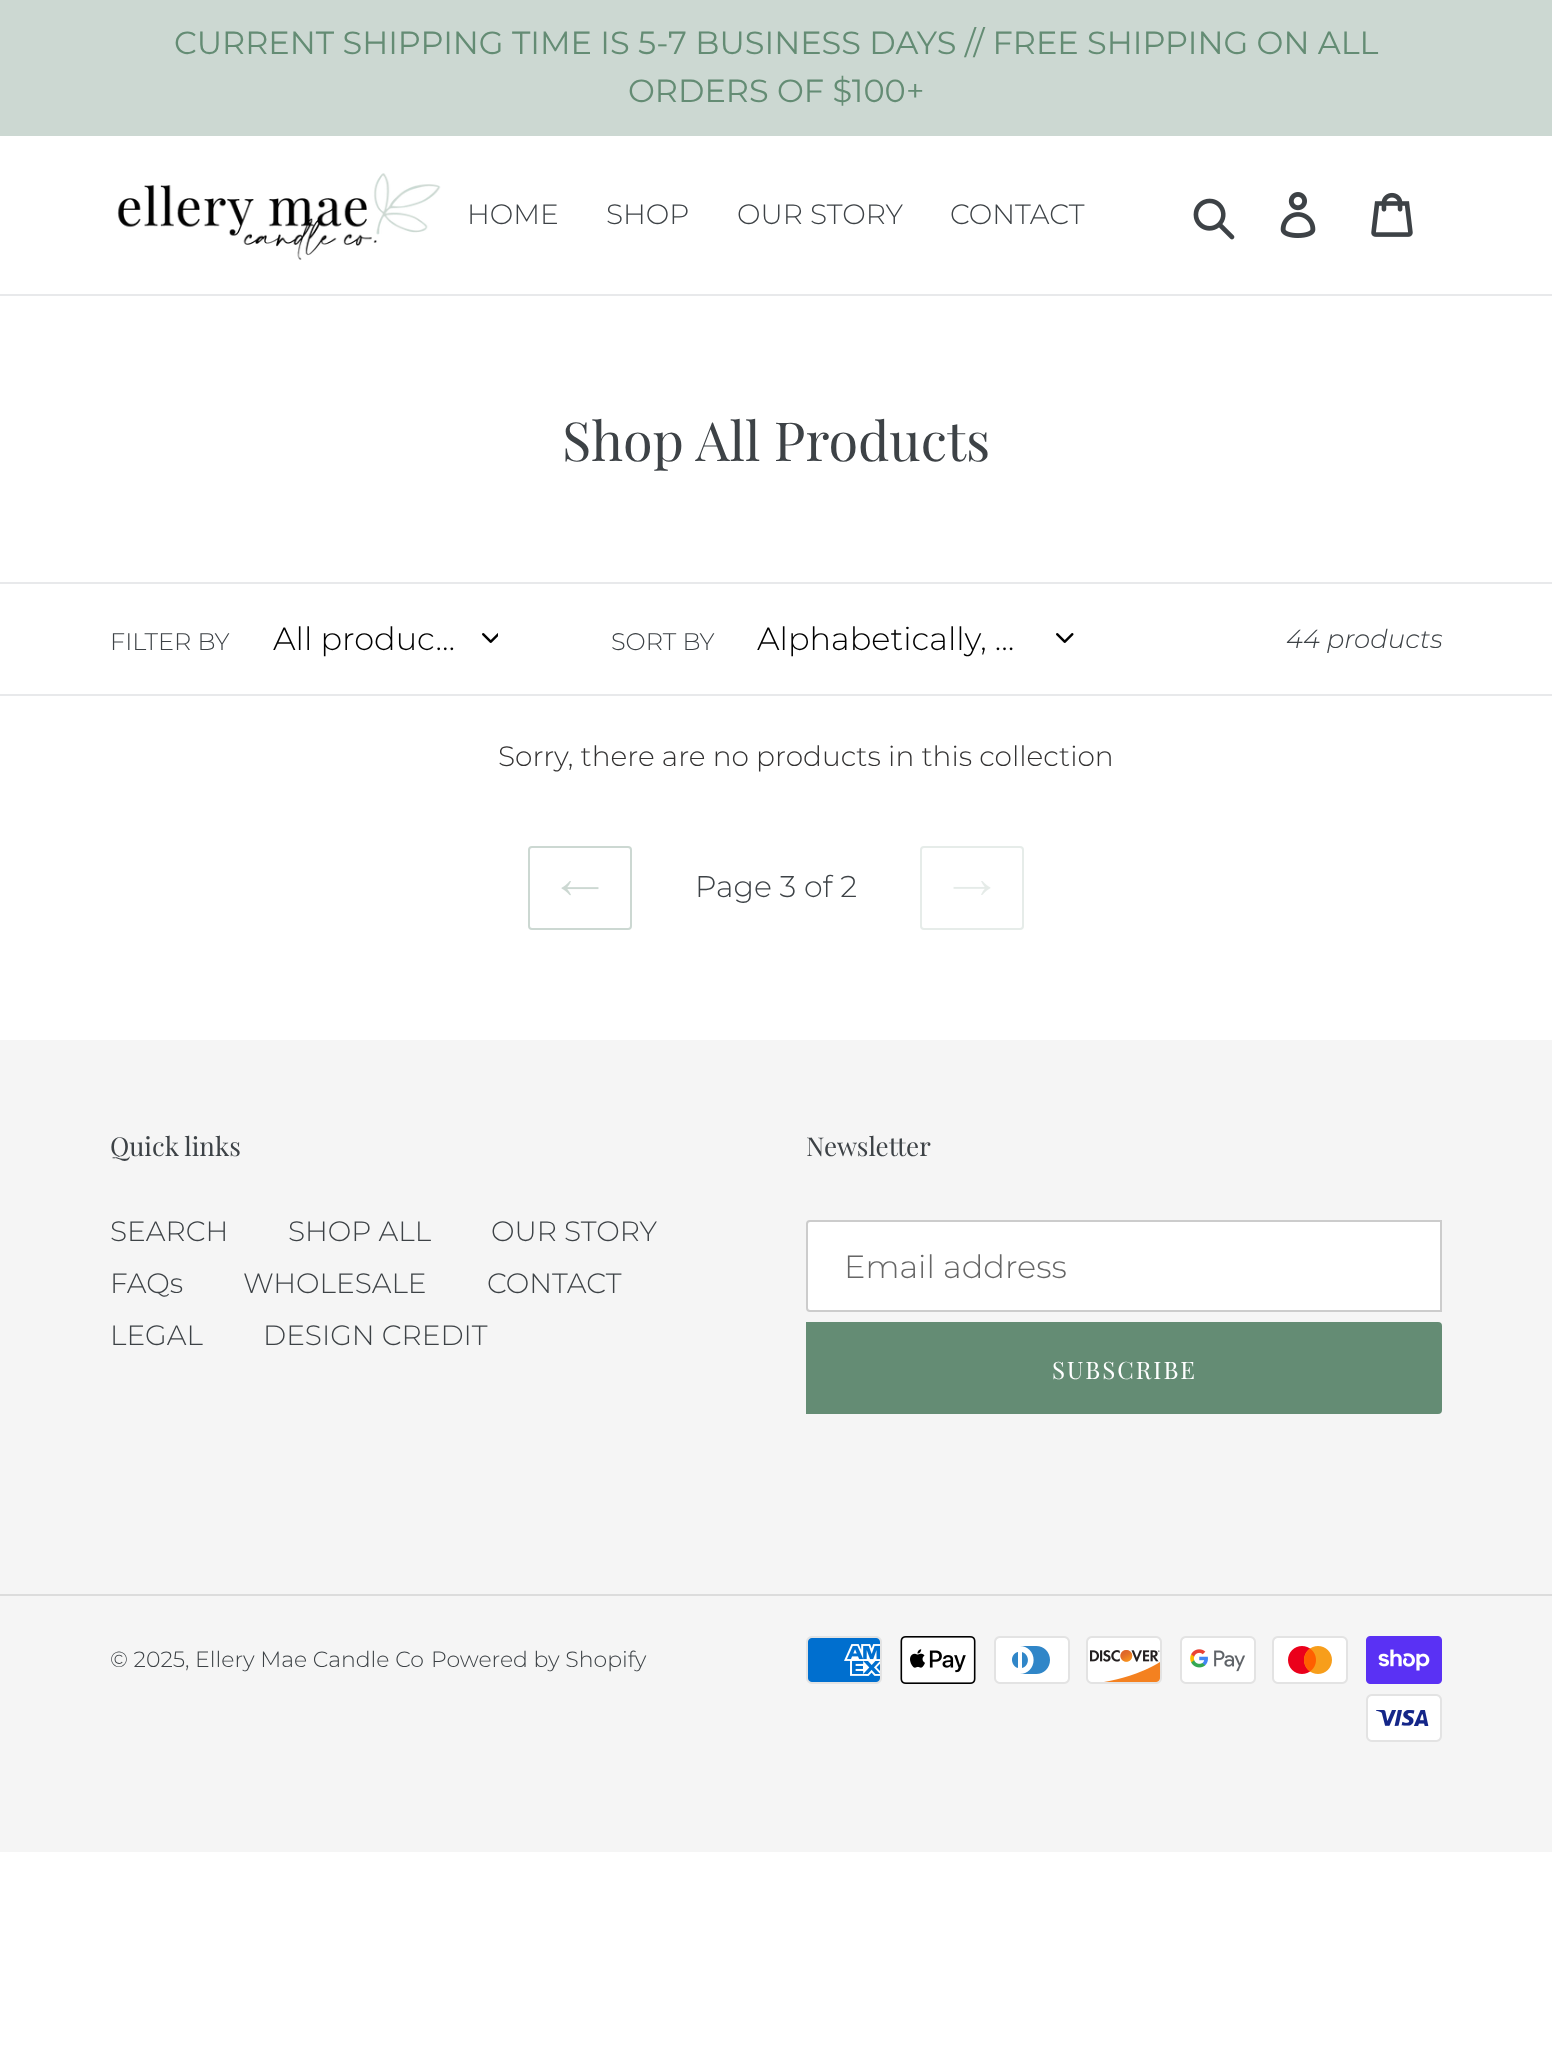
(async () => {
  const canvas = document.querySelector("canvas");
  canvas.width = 1552;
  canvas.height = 2046;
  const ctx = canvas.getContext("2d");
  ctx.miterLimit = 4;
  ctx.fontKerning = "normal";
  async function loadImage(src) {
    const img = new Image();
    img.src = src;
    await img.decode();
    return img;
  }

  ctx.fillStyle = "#ffffff";
  ctx.fillRect(0, 0, 1552, 2046);
  ctx.fillStyle = "#ccd8d2";
  ctx.fillRect(0, 0, 1552, 136);
  ctx.fillStyle = "#e8e9eb";
  ctx.fillRect(0, 294, 1552, 2);
  ctx.drawImage(await loadImage("img/1.png"), 117, 173, 324, 87);
  ctx.drawImage(await loadImage("img/2.png"), 1193, 198, 42, 42);
  ctx.drawImage(await loadImage("img/3.png"), 1280, 192, 36, 46);
  ctx.drawImage(await loadImage("img/4.png"), 1371, 192, 42, 45);
  ctx.fillRect(0, 582, 1552, 2);
  ctx.fillRect(0, 694, 1552, 2);
  ctx.drawImage(await loadImage("img/5.png"), 482, 633, 16, 10);
  ctx.drawImage(await loadImage("img/6.png"), 1056, 633, 18, 10);
  ctx.beginPath();
  ctx.roundRect(529, 847, 102, 82, 3);
  ctx.strokeStyle = "#ccd8d2";
  ctx.lineWidth = 2;
  ctx.stroke();
  ctx.drawImage(await loadImage("img/7.png"), 561, 881, 38, 15);
  ctx.beginPath();
  ctx.roundRect(921, 847, 102, 82, 3);
  ctx.strokeStyle = "#e6ece9";
  ctx.stroke();
  ctx.drawImage(await loadImage("img/8.png"), 953, 881, 38, 14);
  ctx.fillStyle = "#f5f5f5";
  ctx.fillRect(0, 1040, 1552, 812);
  ctx.fillStyle = "#ffffff";
  ctx.beginPath();
  ctx.roundRect(807, 1221, 634, 90, [3, 0, 0, 3]);
  ctx.fill();
  ctx.strokeStyle = "#cccccc";
  ctx.stroke();
  ctx.fillStyle = "#648c74";
  ctx.beginPath();
  ctx.roundRect(806, 1322, 636, 92, [0, 4, 4, 0]);
  ctx.fill();
  ctx.fillStyle = "#dcdcdc";
  ctx.fillRect(0, 1594, 1552, 2);
  ctx.drawImage(await loadImage("img/9.png"), 806, 1636, 76, 48);
  ctx.drawImage(await loadImage("img/10.png"), 900, 1636, 76, 48);
  ctx.drawImage(await loadImage("img/11.png"), 994, 1636, 76, 48);
  ctx.drawImage(await loadImage("img/12.png"), 1086, 1636, 76, 48);
  ctx.drawImage(await loadImage("img/13.png"), 1180, 1636, 76, 48);
  ctx.drawImage(await loadImage("img/14.png"), 1272, 1636, 76, 48);
  ctx.drawImage(await loadImage("img/15.png"), 1366, 1636, 76, 48);
  ctx.drawImage(await loadImage("img/16.png"), 1366, 1694, 76, 48);
  ctx.font = "32px Montserrat";
  ctx.fillStyle = "#648c74";
  ctx.fillText("CURRENT SHIPPING TIME IS 5-7 BUSINESS DAYS // FREE SHIPPING ON ALL", 174, 54);
  ctx.fillText("ORDERS OF $100+", 628, 102);
  ctx.font = "300 28px Montserrat";
  ctx.fillStyle = "#3d4246";
  for (const [text, x, y] of [
    ["HOME", 467, 224],
    ["SHOP", 606, 224],
    ["OUR STORY", 737, 224],
    ["CONTACT", 950, 224],
  ]) {
    ctx.fillText(text, x, y);
  }
  ctx.font = "54px Playfair Display";
  ctx.fillText("Shop All Products", 562, 461);
  ctx.font = "300 24px Montserrat";
  ctx.fillText("FILTER BY", 110, 650);
  ctx.font = "300 32px Montserrat";
  ctx.fillStyle = "#000000";
  ctx.fillText("All produc…", 273, 650);
  ctx.font = "300 24px Montserrat";
  ctx.fillStyle = "#3d4246";
  ctx.fillText("SORT BY", 611, 650);
  ctx.font = "300 32px Montserrat";
  ctx.fillStyle = "#000000";
  ctx.fillText("Alphabetically, …", 757, 650);
  ctx.font = "italic 300 26px Montserrat";
  ctx.fillStyle = "#3d4246";
  ctx.fillText("44 products", 1286, 648);
  ctx.font = "300 28px Montserrat";
  ctx.fillStyle = "#333232";
  ctx.fillText("Sorry, there are no products in this collection", 498, 766);
  ctx.font = "300 30px Montserrat";
  ctx.fillStyle = "#3d4246";
  ctx.fillText("Page 3 of 2", 695, 897);
  ctx.font = "26px Playfair Display";
  ctx.fillText("Quick links", 110, 1156);
  ctx.font = "300 28px Montserrat";
  for (const [text, x, y] of [
    ["SEARCH", 110, 1241],
    ["SHOP ALL", 288, 1241],
    ["OUR STORY", 491, 1241],
    ["FAQs", 110, 1293],
    ["WHOLESALE", 243, 1293],
    ["CONTACT", 487, 1293],
    ["LEGAL", 110, 1345],
    ["DESIGN CREDIT", 263, 1345],
  ]) {
    ctx.fillText(text, x, y);
  }
  ctx.font = "26px Playfair Display";
  ctx.fillText("Newsletter", 806, 1156);
  ctx.font = "300 32px Montserrat";
  ctx.fillStyle = "#666666";
  ctx.fillText("Email address", 844, 1278);
  ctx.letterSpacing = "2px";
  ctx.font = "24px Playfair Display";
  ctx.fillStyle = "#ffffff";
  ctx.fillText("SUBSCRIBE", 1052, 1379);
  ctx.letterSpacing = "0px";
  ctx.font = "300 22px Montserrat";
  ctx.fillStyle = "#3d4246";
  ctx.fillText("© 2025, Ellery Mae Candle Co", 110, 1667);
  ctx.fillText("Powered by Shopify", 431, 1667);
})();
